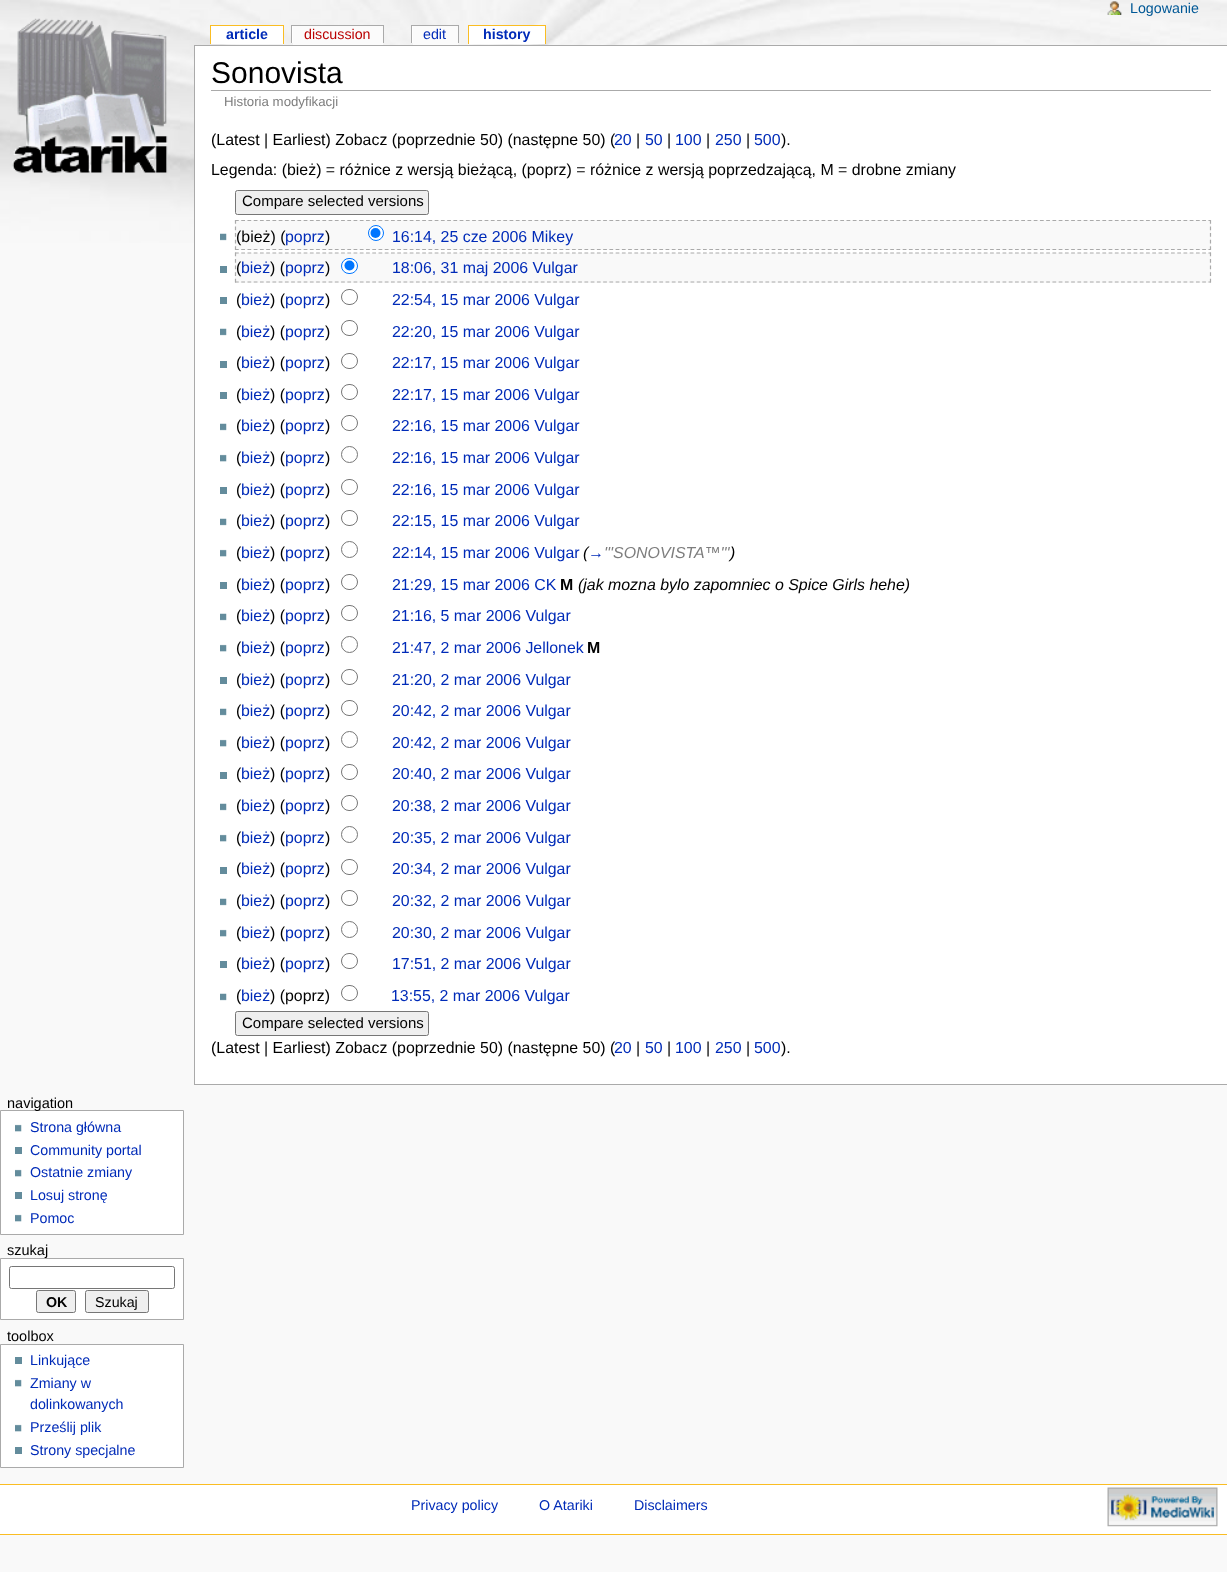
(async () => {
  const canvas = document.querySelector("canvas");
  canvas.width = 1227;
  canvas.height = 1572;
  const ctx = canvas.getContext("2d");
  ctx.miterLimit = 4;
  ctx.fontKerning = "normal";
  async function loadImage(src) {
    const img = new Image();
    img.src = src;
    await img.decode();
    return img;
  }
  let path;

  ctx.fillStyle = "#f9f9f9";
  ctx.fillRect(0, 0, 1227, 1572);
  ctx.drawImage(await loadImage("img/1.png"), 0, 0, 1227, 243);
  ctx.drawImage(await loadImage("img/2.png"), 1107, 1, 15, 14);
  ctx.drawImage(await loadImage("img/3.png"), 12, 18, 156, 155);
  for (const [x, y, w, h, color] of [
    [211, 26, 72, 18, "#ffffff"],
    [210, 25, 74, 1, "#fabd23"],
    [283, 25, 1, 19, "#fabd23"],
    [210, 25, 1, 19, "#fabd23"],
    [292, 26, 1, 17, "#ffffff"],
    [291, 25, 93, 1, "#aaaaaa"],
    [383, 25, 1, 18, "#aaaaaa"],
    [291, 25, 1, 18, "#aaaaaa"],
    [293, 26, 90, 19, "#fbfbfb"],
    [412, 26, 1, 17, "#ffffff"],
    [411, 25, 48, 1, "#aaaaaa"],
    [458, 25, 1, 18, "#aaaaaa"],
    [411, 25, 1, 18, "#aaaaaa"],
    [413, 26, 45, 19, "#fbfbfb"],
    [469, 26, 76, 18, "#ffffff"],
    [468, 25, 78, 1, "#fabd23"],
    [545, 25, 1, 19, "#fabd23"],
    [468, 25, 1, 19, "#fabd23"],
  ]) {
    ctx.fillStyle = color;
    ctx.fillRect(x, y, w, h);
  }
  ctx.fillStyle = "#ffffff";
  ctx.beginPath();
  ctx.rect(0.5, 1110.5, 183, 124);
  ctx.fill();
  ctx.strokeStyle = "#aaaaaa";
  ctx.stroke();
  ctx.drawImage(await loadImage("img/4.png"), 15, 1124, 7, 8);
  ctx.fillStyle = "#638c9c";
  ctx.fillRect(15, 1147, 7, 7);
  ctx.drawImage(await loadImage("img/4.png"), 15, 1169, 7, 8);
  ctx.fillRect(15, 1192, 7, 7);
  ctx.drawImage(await loadImage("img/4.png"), 15, 1214, 7, 8);
  ctx.fillStyle = "#ffffff";
  ctx.beginPath();
  ctx.rect(0.5, 1258.5, 183, 61);
  ctx.fill();
  ctx.stroke();
  ctx.beginPath();
  ctx.roundRect(9.5, 1266.5, 165, 22, 2);
  ctx.strokeStyle = "#767676";
  ctx.stroke();
  ctx.fillStyle = "#efefef";
  ctx.beginPath();
  ctx.roundRect(36.5, 1290.5, 39, 22, 2);
  ctx.fill();
  ctx.stroke();
  ctx.beginPath();
  ctx.roundRect(85.5, 1290.5, 63, 22, 2);
  ctx.fill();
  ctx.stroke();
  ctx.fillStyle = "#ffffff";
  ctx.beginPath();
  ctx.rect(0.5, 1344.5, 183, 123);
  ctx.fill();
  ctx.strokeStyle = "#aaaaaa";
  ctx.stroke();
  ctx.fillStyle = "#638c9c";
  ctx.fillRect(15, 1357, 7, 7);
  ctx.drawImage(await loadImage("img/4.png"), 15, 1379, 7, 8);
  ctx.drawImage(await loadImage("img/4.png"), 15, 1424, 7, 8);
  for (const [x, y, w, h, color] of [
    [15, 1447, 7, 7, "#638c9c"],
    [195, 46, 1032, 1038, "#ffffff"],
    [194, 45, 1033, 1, "#aaaaaa"],
    [194, 1084, 1033, 1, "#aaaaaa"],
    [194, 45, 1, 1040, "#aaaaaa"],
    [211, 90, 1000, 1, "#aaaaaa"],
  ]) {
    ctx.fillStyle = color;
    ctx.fillRect(x, y, w, h);
  }
  ctx.fillStyle = "#efefef";
  ctx.beginPath();
  ctx.roundRect(235.5, 190.5, 193, 24, 2);
  ctx.fill();
  ctx.strokeStyle = "#767676";
  ctx.stroke();
  ctx.fillStyle = "#f9f9f9";
  ctx.fillRect(235, 220, 976, 30);
  path = new Path2D("M235 220.5H1211");
  ctx.strokeStyle = "#aaaaaa";
  ctx.lineWidth = 1.2;
  ctx.setLineDash([3.75, 2.49]);
  ctx.stroke(path);
  path = new Path2D("M1210.5 220V250");
  ctx.setLineDash([3.75, 2.81]);
  ctx.stroke(path);
  path = new Path2D("M235 249.5H1211");
  ctx.setLineDash([3.75, 2.49]);
  ctx.stroke(path);
  path = new Path2D("M235.5 220V250");
  ctx.setLineDash([3.75, 2.81]);
  ctx.stroke(path);
  ctx.drawImage(await loadImage("img/5.png"), 220, 233, 7, 8);
  ctx.fillStyle = "#ffffff";
  ctx.beginPath();
  ctx.arc(376, 233, 7.5, 0, Math.PI * 2);
  ctx.fill();
  ctx.strokeStyle = "#0075ff";
  ctx.lineWidth = 1;
  ctx.setLineDash([]);
  ctx.stroke();
  ctx.fillStyle = "#0075ff";
  ctx.beginPath();
  ctx.arc(375.5, 233, 5, 0, Math.PI * 2);
  ctx.fill();
  ctx.fillStyle = "#f9f9f9";
  ctx.fillRect(235, 253, 976, 30);
  path = new Path2D("M235 253H1211");
  ctx.strokeStyle = "#aaaaaa";
  ctx.lineWidth = 1.2;
  ctx.setLineDash([3.75, 2.49]);
  ctx.stroke(path);
  path = new Path2D("M1210.5 252.5V282.5");
  ctx.setLineDash([3.75, 2.81]);
  ctx.stroke(path);
  path = new Path2D("M235 282H1211");
  ctx.setLineDash([3.75, 2.49]);
  ctx.stroke(path);
  path = new Path2D("M235.5 252.5V282.5");
  ctx.setLineDash([3.75, 2.81]);
  ctx.stroke(path);
  ctx.fillStyle = "#638c9c";
  ctx.fillRect(220, 266, 7, 7);
  ctx.fillStyle = "#ffffff";
  ctx.beginPath();
  ctx.roundRect(341.5, 258.5, 16, 15, 7.5);
  ctx.fill();
  ctx.strokeStyle = "#0075ff";
  ctx.lineWidth = 1;
  ctx.setLineDash([]);
  ctx.stroke();
  ctx.fillStyle = "#0075ff";
  ctx.beginPath();
  ctx.arc(349.5, 265.5, 5, 0, Math.PI * 2);
  ctx.fill();
  ctx.fillStyle = "#638c9c";
  ctx.fillRect(220, 297, 7, 7);
  ctx.beginPath();
  ctx.roundRect(341.5, 289.5, 16, 15, 7.5);
  ctx.strokeStyle = "#767676";
  ctx.stroke();
  ctx.drawImage(await loadImage("img/5.png"), 220, 328, 7, 8);
  ctx.beginPath();
  ctx.roundRect(341.5, 320.5, 16, 15, 7.5);
  ctx.stroke();
  ctx.fillRect(220, 361, 7, 7);
  ctx.beginPath();
  ctx.roundRect(341.5, 353.5, 16, 15, 7.5);
  ctx.stroke();
  ctx.fillRect(220, 392, 7, 7);
  ctx.beginPath();
  ctx.roundRect(341.5, 384.5, 16, 15, 7.5);
  ctx.stroke();
  ctx.drawImage(await loadImage("img/5.png"), 220, 423, 7, 8);
  ctx.beginPath();
  ctx.roundRect(341.5, 415.5, 16, 15, 7.5);
  ctx.stroke();
  ctx.drawImage(await loadImage("img/4.png"), 220, 454, 7, 8);
  ctx.beginPath();
  ctx.arc(349.5, 454.5, 8, 0, Math.PI * 2);
  ctx.stroke();
  ctx.fillRect(220, 487, 7, 7);
  ctx.beginPath();
  ctx.roundRect(341.5, 479.5, 16, 15, 7.5);
  ctx.stroke();
  ctx.drawImage(await loadImage("img/5.png"), 220, 518, 7, 8);
  ctx.beginPath();
  ctx.roundRect(341.5, 510.5, 16, 15, 7.5);
  ctx.stroke();
  ctx.drawImage(await loadImage("img/4.png"), 220, 549, 7, 8);
  ctx.beginPath();
  ctx.arc(349.5, 549.5, 8, 0, Math.PI * 2);
  ctx.stroke();
  ctx.fillRect(220, 582, 7, 7);
  ctx.beginPath();
  ctx.roundRect(341.5, 574.5, 16, 15, 7.5);
  ctx.stroke();
  ctx.drawImage(await loadImage("img/5.png"), 220, 613, 7, 8);
  ctx.beginPath();
  ctx.roundRect(341.5, 605.5, 16, 15, 7.5);
  ctx.stroke();
  ctx.drawImage(await loadImage("img/4.png"), 220, 644, 7, 8);
  ctx.beginPath();
  ctx.arc(349.5, 644.5, 8, 0, Math.PI * 2);
  ctx.stroke();
  ctx.fillRect(220, 677, 7, 7);
  ctx.beginPath();
  ctx.roundRect(341.5, 669.5, 16, 15, 7.5);
  ctx.stroke();
  ctx.drawImage(await loadImage("img/5.png"), 220, 708, 7, 8);
  ctx.beginPath();
  ctx.roundRect(341.5, 700.5, 16, 15, 7.5);
  ctx.stroke();
  ctx.drawImage(await loadImage("img/4.png"), 220, 739, 7, 8);
  ctx.beginPath();
  ctx.arc(349.5, 739.5, 8, 0, Math.PI * 2);
  ctx.stroke();
  ctx.fillRect(220, 772, 7, 7);
  ctx.beginPath();
  ctx.roundRect(341.5, 764.5, 16, 15, 7.5);
  ctx.stroke();
  ctx.drawImage(await loadImage("img/5.png"), 220, 803, 7, 8);
  ctx.beginPath();
  ctx.roundRect(341.5, 795.5, 16, 15, 7.5);
  ctx.stroke();
  ctx.drawImage(await loadImage("img/4.png"), 220, 834, 7, 8);
  ctx.beginPath();
  ctx.arc(349.5, 834.5, 8, 0, Math.PI * 2);
  ctx.stroke();
  ctx.fillRect(220, 867, 7, 7);
  ctx.beginPath();
  ctx.roundRect(341.5, 859.5, 16, 15, 7.5);
  ctx.stroke();
  ctx.drawImage(await loadImage("img/5.png"), 220, 898, 7, 8);
  ctx.beginPath();
  ctx.roundRect(341.5, 890.5, 16, 15, 7.5);
  ctx.stroke();
  ctx.drawImage(await loadImage("img/4.png"), 220, 929, 7, 8);
  ctx.beginPath();
  ctx.arc(349.5, 929.5, 8, 0, Math.PI * 2);
  ctx.stroke();
  ctx.fillRect(220, 961, 7, 7);
  ctx.beginPath();
  ctx.roundRect(341.5, 953.5, 16, 15, 7.5);
  ctx.stroke();
  ctx.drawImage(await loadImage("img/5.png"), 220, 993, 7, 8);
  ctx.beginPath();
  ctx.roundRect(341.5, 985.5, 16, 15, 7.5);
  ctx.stroke();
  ctx.fillStyle = "#efefef";
  ctx.beginPath();
  ctx.roundRect(235.5, 1011.5, 193, 24, 2);
  ctx.fill();
  ctx.stroke();
  for (const [x, y, w, h, color] of [
    [0, 1485, 1227, 49, "#ffffff"],
    [0, 1484, 1227, 1, "#fabd23"],
    [0, 1534, 1227, 1, "#fabd23"],
  ]) {
    ctx.fillStyle = color;
    ctx.fillRect(x, y, w, h);
  }
  ctx.drawImage(await loadImage("img/6.png"), 1107, 1487, 111, 40);
  ctx.font = "14.25px Liberation Sans";
  ctx.fillStyle = "#005896";
  ctx.fillText("Logowanie", 1130, 13);
  ctx.font = "bold 14.25px Liberation Sans";
  ctx.fillStyle = "#002bb8";
  ctx.fillText("article", 226, 39);
  ctx.font = "14.25px Liberation Sans";
  ctx.fillStyle = "#ba0000";
  ctx.fillText("discussion", 304, 39);
  ctx.fillStyle = "#002bb8";
  ctx.fillText("edit", 423, 39);
  ctx.font = "bold 14.25px Liberation Sans";
  ctx.fillText("history", 483, 39);
  ctx.font = "14.5px Liberation Sans";
  ctx.fillStyle = "#000000";
  ctx.fillText("navigation", 7, 1108);
  ctx.font = "14.25px Liberation Sans";
  ctx.fillStyle = "#002bb8";
  for (const [text, x, y] of [
    ["Strona główna", 30, 1132],
    ["Community portal", 30, 1155],
    ["Ostatnie zmiany", 30, 1177],
    ["Losuj stronę", 30, 1200],
    ["Pomoc", 30, 1223],
  ]) {
    ctx.fillText(text, x, y);
  }
  ctx.font = "14.5px Liberation Sans";
  ctx.fillStyle = "#000000";
  ctx.fillText("szukaj", 7, 1255);
  ctx.font = "bold 14.25px Liberation Sans";
  ctx.fillText("OK", 46, 1307);
  ctx.font = "14.25px Liberation Sans";
  ctx.fillText("Szukaj", 95, 1307);
  ctx.font = "14.5px Liberation Sans";
  ctx.fillText("toolbox", 7, 1341);
  ctx.font = "14.25px Liberation Sans";
  ctx.fillStyle = "#002bb8";
  for (const [text, x, y] of [
    ["Linkujące", 30, 1365],
    ["Zmiany w", 30, 1388],
    ["dolinkowanych", 30, 1409],
    ["Prześlij plik", 30, 1432],
    ["Strony specjalne", 30, 1455],
  ]) {
    ctx.fillText(text, x, y);
  }
  ctx.font = "30px Liberation Sans";
  ctx.fillStyle = "#000000";
  ctx.fillText("Sonovista", 211, 83);
  ctx.font = "13.25px Liberation Sans";
  ctx.fillStyle = "#7d7d7d";
  ctx.fillText("Historia modyfikacji", 224, 106);
  ctx.font = "15.9px Liberation Sans";
  ctx.fillStyle = "#000000";
  ctx.fillText("(Latest | Earliest) Zobacz (poprzednie 50) (następne 50) (", 211, 145);
  ctx.fillStyle = "#002bb8";
  ctx.fillText("20", 614, 145);
  ctx.fillStyle = "#000000";
  ctx.fillText("|", 636, 145);
  ctx.fillStyle = "#002bb8";
  ctx.fillText("50", 645, 145);
  ctx.fillStyle = "#000000";
  ctx.fillText("|", 667, 145);
  ctx.fillStyle = "#002bb8";
  ctx.fillText("100", 675, 145);
  ctx.fillStyle = "#000000";
  ctx.fillText("|", 706, 145);
  ctx.fillStyle = "#002bb8";
  ctx.fillText("250", 715, 145);
  ctx.fillStyle = "#000000";
  ctx.fillText("|", 746, 145);
  ctx.fillStyle = "#002bb8";
  ctx.fillText("500", 754, 145);
  ctx.fillStyle = "#000000";
  ctx.fillText(").", 781, 145);
  ctx.fillText("Legenda: (bież) = różnice z wersją bieżącą, (poprz) = różnice z wersją poprzedzającą, M = drobne zmiany", 211, 175);
  ctx.font = "15px Liberation Sans";
  ctx.fillText("Compare selected versions", 242, 206);
  ctx.font = "15.9px Liberation Sans";
  ctx.fillText("(bież) (", 236, 242);
  ctx.fillStyle = "#002bb8";
  ctx.fillText("poprz", 285, 242);
  ctx.fillStyle = "#000000";
  ctx.fillText(")", 325, 242);
  ctx.fillStyle = "#002bb8";
  ctx.fillText("16:14, 25 cze 2006 Mikey", 392, 242);
  ctx.fillStyle = "#000000";
  ctx.fillText("(", 236, 273);
  ctx.fillStyle = "#002bb8";
  ctx.fillText("bież", 241, 273);
  ctx.fillStyle = "#000000";
  ctx.fillText(") (", 270, 273);
  ctx.fillStyle = "#002bb8";
  ctx.fillText("poprz", 285, 273);
  ctx.fillStyle = "#000000";
  ctx.fillText(")", 325, 273);
  ctx.fillStyle = "#002bb8";
  ctx.fillText("18:06, 31 maj 2006 Vulgar", 392, 273);
  ctx.fillStyle = "#000000";
  ctx.fillText("(", 236, 305);
  ctx.fillStyle = "#002bb8";
  ctx.fillText("bież", 241, 305);
  ctx.fillStyle = "#000000";
  ctx.fillText(") (", 270, 305);
  ctx.fillStyle = "#002bb8";
  ctx.fillText("poprz", 285, 305);
  ctx.fillStyle = "#000000";
  ctx.fillText(")", 325, 305);
  ctx.fillStyle = "#002bb8";
  ctx.fillText("22:54, 15 mar 2006 Vulgar", 392, 305);
  ctx.fillStyle = "#000000";
  ctx.fillText("(", 236, 337);
  ctx.fillStyle = "#002bb8";
  ctx.fillText("bież", 241, 337);
  ctx.fillStyle = "#000000";
  ctx.fillText(") (", 270, 337);
  ctx.fillStyle = "#002bb8";
  ctx.fillText("poprz", 285, 337);
  ctx.fillStyle = "#000000";
  ctx.fillText(")", 325, 337);
  ctx.fillStyle = "#002bb8";
  ctx.fillText("22:20, 15 mar 2006 Vulgar", 392, 337);
  ctx.fillStyle = "#000000";
  ctx.fillText("(", 236, 368);
  ctx.fillStyle = "#002bb8";
  ctx.fillText("bież", 241, 368);
  ctx.fillStyle = "#000000";
  ctx.fillText(") (", 270, 368);
  ctx.fillStyle = "#002bb8";
  ctx.fillText("poprz", 285, 368);
  ctx.fillStyle = "#000000";
  ctx.fillText(")", 325, 368);
  ctx.fillStyle = "#002bb8";
  ctx.fillText("22:17, 15 mar 2006 Vulgar", 392, 368);
  ctx.fillStyle = "#000000";
  ctx.fillText("(", 236, 400);
  ctx.fillStyle = "#002bb8";
  ctx.fillText("bież", 241, 400);
  ctx.fillStyle = "#000000";
  ctx.fillText(") (", 270, 400);
  ctx.fillStyle = "#002bb8";
  ctx.fillText("poprz", 285, 400);
  ctx.fillStyle = "#000000";
  ctx.fillText(")", 325, 400);
  ctx.fillStyle = "#002bb8";
  ctx.fillText("22:17, 15 mar 2006 Vulgar", 392, 400);
  ctx.fillStyle = "#000000";
  ctx.fillText("(", 236, 431);
  ctx.fillStyle = "#002bb8";
  ctx.fillText("bież", 241, 431);
  ctx.fillStyle = "#000000";
  ctx.fillText(") (", 270, 431);
  ctx.fillStyle = "#002bb8";
  ctx.fillText("poprz", 285, 431);
  ctx.fillStyle = "#000000";
  ctx.fillText(")", 325, 431);
  ctx.fillStyle = "#002bb8";
  ctx.fillText("22:16, 15 mar 2006 Vulgar", 392, 431);
  ctx.fillStyle = "#000000";
  ctx.fillText("(", 236, 463);
  ctx.fillStyle = "#002bb8";
  ctx.fillText("bież", 241, 463);
  ctx.fillStyle = "#000000";
  ctx.fillText(") (", 270, 463);
  ctx.fillStyle = "#002bb8";
  ctx.fillText("poprz", 285, 463);
  ctx.fillStyle = "#000000";
  ctx.fillText(")", 325, 463);
  ctx.fillStyle = "#002bb8";
  ctx.fillText("22:16, 15 mar 2006 Vulgar", 392, 463);
  ctx.fillStyle = "#000000";
  ctx.fillText("(", 236, 495);
  ctx.fillStyle = "#002bb8";
  ctx.fillText("bież", 241, 495);
  ctx.fillStyle = "#000000";
  ctx.fillText(") (", 270, 495);
  ctx.fillStyle = "#002bb8";
  ctx.fillText("poprz", 285, 495);
  ctx.fillStyle = "#000000";
  ctx.fillText(")", 325, 495);
  ctx.fillStyle = "#002bb8";
  ctx.fillText("22:16, 15 mar 2006 Vulgar", 392, 495);
  ctx.fillStyle = "#000000";
  ctx.fillText("(", 236, 526);
  ctx.fillStyle = "#002bb8";
  ctx.fillText("bież", 241, 526);
  ctx.fillStyle = "#000000";
  ctx.fillText(") (", 270, 526);
  ctx.fillStyle = "#002bb8";
  ctx.fillText("poprz", 285, 526);
  ctx.fillStyle = "#000000";
  ctx.fillText(")", 325, 526);
  ctx.fillStyle = "#002bb8";
  ctx.fillText("22:15, 15 mar 2006 Vulgar", 392, 526);
  ctx.fillStyle = "#000000";
  ctx.fillText("(", 236, 558);
  ctx.fillStyle = "#002bb8";
  ctx.fillText("bież", 241, 558);
  ctx.fillStyle = "#000000";
  ctx.fillText(") (", 270, 558);
  ctx.fillStyle = "#002bb8";
  ctx.fillText("poprz", 285, 558);
  ctx.fillStyle = "#000000";
  ctx.fillText(")", 325, 558);
  ctx.fillStyle = "#002bb8";
  ctx.fillText("22:14, 15 mar 2006 Vulgar", 392, 558);
  ctx.font = "italic 15.9px Liberation Sans";
  ctx.fillStyle = "#000000";
  ctx.fillText("(", 583, 558);
  ctx.fillStyle = "#002bb8";
  ctx.fillText("→", 588, 558);
  ctx.fillStyle = "#7d7d7d";
  ctx.fillText("'''SONOVISTA™'''", 604, 558);
  ctx.fillStyle = "#000000";
  ctx.fillText(")", 730, 558);
  ctx.font = "15.9px Liberation Sans";
  ctx.fillText("(", 236, 590);
  ctx.fillStyle = "#002bb8";
  ctx.fillText("bież", 241, 590);
  ctx.fillStyle = "#000000";
  ctx.fillText(") (", 270, 590);
  ctx.fillStyle = "#002bb8";
  ctx.fillText("poprz", 285, 590);
  ctx.fillStyle = "#000000";
  ctx.fillText(")", 325, 590);
  ctx.fillStyle = "#002bb8";
  ctx.fillText("21:29, 15 mar 2006 CK", 392, 590);
  ctx.font = "bold 15.9px Liberation Sans";
  ctx.fillStyle = "#000000";
  ctx.fillText("M", 560, 590);
  ctx.font = "italic 15.9px Liberation Sans";
  ctx.fillText("(jak mozna bylo zapomniec o Spice Girls hehe)", 578, 590);
  ctx.font = "15.9px Liberation Sans";
  ctx.fillText("(", 236, 621);
  ctx.fillStyle = "#002bb8";
  ctx.fillText("bież", 241, 621);
  ctx.fillStyle = "#000000";
  ctx.fillText(") (", 270, 621);
  ctx.fillStyle = "#002bb8";
  ctx.fillText("poprz", 285, 621);
  ctx.fillStyle = "#000000";
  ctx.fillText(")", 325, 621);
  ctx.fillStyle = "#002bb8";
  ctx.fillText("21:16, 5 mar 2006 Vulgar", 392, 621);
  ctx.fillStyle = "#000000";
  ctx.fillText("(", 236, 653);
  ctx.fillStyle = "#002bb8";
  ctx.fillText("bież", 241, 653);
  ctx.fillStyle = "#000000";
  ctx.fillText(") (", 270, 653);
  ctx.fillStyle = "#002bb8";
  ctx.fillText("poprz", 285, 653);
  ctx.fillStyle = "#000000";
  ctx.fillText(")", 325, 653);
  ctx.fillStyle = "#002bb8";
  ctx.fillText("21:47, 2 mar 2006 Jellonek", 392, 653);
  ctx.font = "bold 15.9px Liberation Sans";
  ctx.fillStyle = "#000000";
  ctx.fillText("M", 587, 653);
  ctx.font = "15.9px Liberation Sans";
  ctx.fillText("(", 236, 685);
  ctx.fillStyle = "#002bb8";
  ctx.fillText("bież", 241, 685);
  ctx.fillStyle = "#000000";
  ctx.fillText(") (", 270, 685);
  ctx.fillStyle = "#002bb8";
  ctx.fillText("poprz", 285, 685);
  ctx.fillStyle = "#000000";
  ctx.fillText(")", 325, 685);
  ctx.fillStyle = "#002bb8";
  ctx.fillText("21:20, 2 mar 2006 Vulgar", 392, 685);
  ctx.fillStyle = "#000000";
  ctx.fillText("(", 236, 716);
  ctx.fillStyle = "#002bb8";
  ctx.fillText("bież", 241, 716);
  ctx.fillStyle = "#000000";
  ctx.fillText(") (", 270, 716);
  ctx.fillStyle = "#002bb8";
  ctx.fillText("poprz", 285, 716);
  ctx.fillStyle = "#000000";
  ctx.fillText(")", 325, 716);
  ctx.fillStyle = "#002bb8";
  ctx.fillText("20:42, 2 mar 2006 Vulgar", 392, 716);
  ctx.fillStyle = "#000000";
  ctx.fillText("(", 236, 748);
  ctx.fillStyle = "#002bb8";
  ctx.fillText("bież", 241, 748);
  ctx.fillStyle = "#000000";
  ctx.fillText(") (", 270, 748);
  ctx.fillStyle = "#002bb8";
  ctx.fillText("poprz", 285, 748);
  ctx.fillStyle = "#000000";
  ctx.fillText(")", 325, 748);
  ctx.fillStyle = "#002bb8";
  ctx.fillText("20:42, 2 mar 2006 Vulgar", 392, 748);
  ctx.fillStyle = "#000000";
  ctx.fillText("(", 236, 779);
  ctx.fillStyle = "#002bb8";
  ctx.fillText("bież", 241, 779);
  ctx.fillStyle = "#000000";
  ctx.fillText(") (", 270, 779);
  ctx.fillStyle = "#002bb8";
  ctx.fillText("poprz", 285, 779);
  ctx.fillStyle = "#000000";
  ctx.fillText(")", 325, 779);
  ctx.fillStyle = "#002bb8";
  ctx.fillText("20:40, 2 mar 2006 Vulgar", 392, 779);
  ctx.fillStyle = "#000000";
  ctx.fillText("(", 236, 811);
  ctx.fillStyle = "#002bb8";
  ctx.fillText("bież", 241, 811);
  ctx.fillStyle = "#000000";
  ctx.fillText(") (", 270, 811);
  ctx.fillStyle = "#002bb8";
  ctx.fillText("poprz", 285, 811);
  ctx.fillStyle = "#000000";
  ctx.fillText(")", 325, 811);
  ctx.fillStyle = "#002bb8";
  ctx.fillText("20:38, 2 mar 2006 Vulgar", 392, 811);
  ctx.fillStyle = "#000000";
  ctx.fillText("(", 236, 843);
  ctx.fillStyle = "#002bb8";
  ctx.fillText("bież", 241, 843);
  ctx.fillStyle = "#000000";
  ctx.fillText(") (", 270, 843);
  ctx.fillStyle = "#002bb8";
  ctx.fillText("poprz", 285, 843);
  ctx.fillStyle = "#000000";
  ctx.fillText(")", 325, 843);
  ctx.fillStyle = "#002bb8";
  ctx.fillText("20:35, 2 mar 2006 Vulgar", 392, 843);
  ctx.fillStyle = "#000000";
  ctx.fillText("(", 236, 874);
  ctx.fillStyle = "#002bb8";
  ctx.fillText("bież", 241, 874);
  ctx.fillStyle = "#000000";
  ctx.fillText(") (", 270, 874);
  ctx.fillStyle = "#002bb8";
  ctx.fillText("poprz", 285, 874);
  ctx.fillStyle = "#000000";
  ctx.fillText(")", 325, 874);
  ctx.fillStyle = "#002bb8";
  ctx.fillText("20:34, 2 mar 2006 Vulgar", 392, 874);
  ctx.fillStyle = "#000000";
  ctx.fillText("(", 236, 906);
  ctx.fillStyle = "#002bb8";
  ctx.fillText("bież", 241, 906);
  ctx.fillStyle = "#000000";
  ctx.fillText(") (", 270, 906);
  ctx.fillStyle = "#002bb8";
  ctx.fillText("poprz", 285, 906);
  ctx.fillStyle = "#000000";
  ctx.fillText(")", 325, 906);
  ctx.fillStyle = "#002bb8";
  ctx.fillText("20:32, 2 mar 2006 Vulgar", 392, 906);
  ctx.fillStyle = "#000000";
  ctx.fillText("(", 236, 938);
  ctx.fillStyle = "#002bb8";
  ctx.fillText("bież", 241, 938);
  ctx.fillStyle = "#000000";
  ctx.fillText(") (", 270, 938);
  ctx.fillStyle = "#002bb8";
  ctx.fillText("poprz", 285, 938);
  ctx.fillStyle = "#000000";
  ctx.fillText(")", 325, 938);
  ctx.fillStyle = "#002bb8";
  ctx.fillText("20:30, 2 mar 2006 Vulgar", 392, 938);
  ctx.fillStyle = "#000000";
  ctx.fillText("(", 236, 969);
  ctx.fillStyle = "#002bb8";
  ctx.fillText("bież", 241, 969);
  ctx.fillStyle = "#000000";
  ctx.fillText(") (", 270, 969);
  ctx.fillStyle = "#002bb8";
  ctx.fillText("poprz", 285, 969);
  ctx.fillStyle = "#000000";
  ctx.fillText(")", 325, 969);
  ctx.fillStyle = "#002bb8";
  ctx.fillText("17:51, 2 mar 2006 Vulgar", 392, 969);
  ctx.fillStyle = "#000000";
  ctx.fillText("(", 236, 1001);
  ctx.fillStyle = "#002bb8";
  ctx.fillText("bież", 241, 1001);
  ctx.fillStyle = "#000000";
  ctx.fillText(") (poprz)", 270, 1001);
  ctx.fillStyle = "#002bb8";
  ctx.fillText("13:55, 2 mar 2006 Vulgar", 391, 1001);
  ctx.font = "15px Liberation Sans";
  ctx.fillStyle = "#000000";
  ctx.fillText("Compare selected versions", 242, 1028);
  ctx.font = "15.9px Liberation Sans";
  ctx.fillText("(Latest | Earliest) Zobacz (poprzednie 50) (następne 50) (", 211, 1053);
  ctx.fillStyle = "#002bb8";
  ctx.fillText("20", 614, 1053);
  ctx.fillStyle = "#000000";
  ctx.fillText("|", 636, 1053);
  ctx.fillStyle = "#002bb8";
  ctx.fillText("50", 645, 1053);
  ctx.fillStyle = "#000000";
  ctx.fillText("|", 667, 1053);
  ctx.fillStyle = "#002bb8";
  ctx.fillText("100", 675, 1053);
  ctx.fillStyle = "#000000";
  ctx.fillText("|", 706, 1053);
  ctx.fillStyle = "#002bb8";
  ctx.fillText("250", 715, 1053);
  ctx.fillStyle = "#000000";
  ctx.fillText("|", 746, 1053);
  ctx.fillStyle = "#002bb8";
  ctx.fillText("500", 754, 1053);
  ctx.fillStyle = "#000000";
  ctx.fillText(").", 781, 1053);
  ctx.font = "14.25px Liberation Sans";
  ctx.fillStyle = "#002bb8";
  for (const [text, x, y] of [
    ["Privacy policy", 411, 1510],
    ["O Atariki", 539, 1510],
    ["Disclaimers", 634, 1510],
  ]) {
    ctx.fillText(text, x, y);
  }
})();
